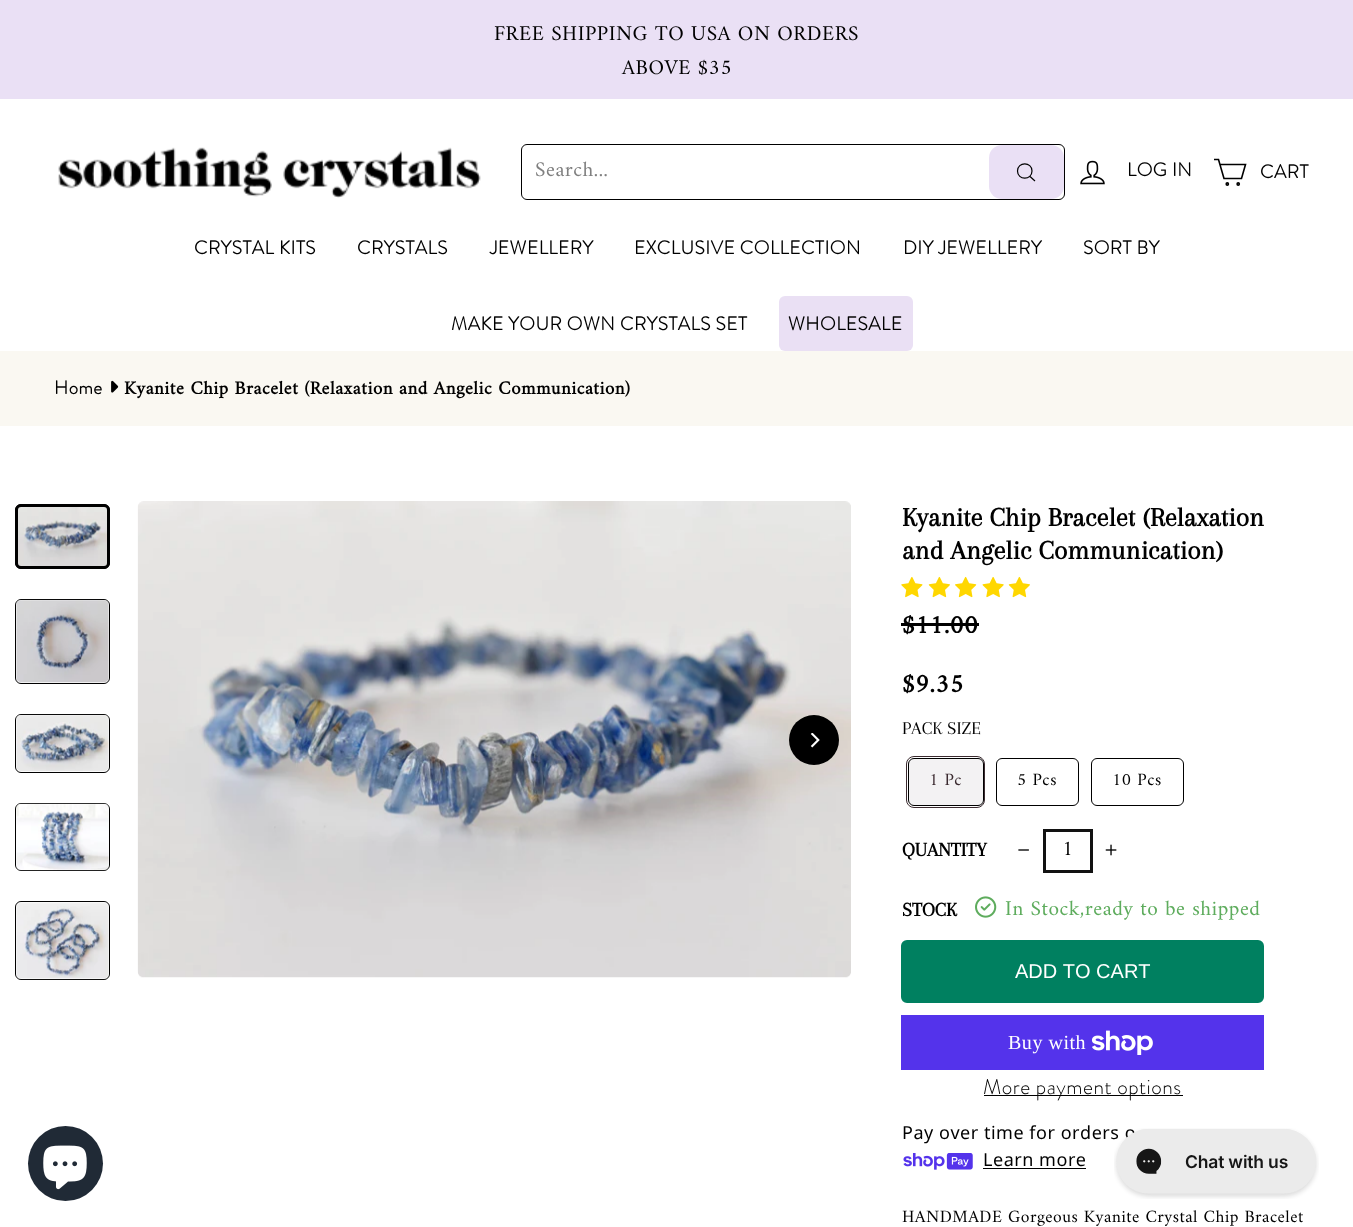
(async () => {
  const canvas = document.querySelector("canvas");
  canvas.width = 1353;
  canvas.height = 1227;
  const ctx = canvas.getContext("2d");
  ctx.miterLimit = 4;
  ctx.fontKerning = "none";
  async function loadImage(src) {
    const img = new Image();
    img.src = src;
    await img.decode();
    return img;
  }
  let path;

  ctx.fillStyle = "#ffffff";
  ctx.fillRect(0, 0, 1353, 1227);
  ctx.fillStyle = "#eae0f5";
  ctx.fillRect(0, 0, 1353, 99);
  ctx.drawImage(await loadImage("img/1.png"), 58, 147, 423, 51);
  ctx.beginPath();
  ctx.roundRect(521.5, 144.5, 543, 55, 5.5);
  ctx.strokeStyle = "#000000";
  ctx.stroke();
  ctx.beginPath();
  ctx.roundRect(989, 145, 75, 54, 13);
  ctx.fill();
  path = new Path2D("M1032 171C1032 180.5 1017.5 180.5 1017.5 171C1017.5 161.5 1032 161.5 1032 171ZM1035 181L1030 176.5");
  ctx.lineWidth = 1.2;
  ctx.stroke(path);
  ctx.drawImage(await loadImage("img/2.png"), 1080, 160, 25, 25);
  path = new Path2D("M1220 164.5H1245.5L1241.5 178.5H1224L1218.5 159.5H1214");
  ctx.lineWidth = 1.6;
  ctx.stroke(path);
  ctx.beginPath();
  ctx.arc(1227.3, 184, 1.1, 0, Math.PI * 2);
  ctx.stroke();
  ctx.beginPath();
  ctx.arc(1238.2, 184, 1.1, 0, Math.PI * 2);
  ctx.stroke();
  ctx.fillStyle = "#eae0f4";
  ctx.beginPath();
  ctx.roundRect(779, 296, 134, 55, 6);
  ctx.fill();
  ctx.fillStyle = "#faf8f2";
  ctx.fillRect(0, 351, 1353, 75);
  ctx.drawImage(await loadImage("img/3.png"), 111, 380, 8, 13);
  ctx.beginPath();
  ctx.roundRect(15.5, 504.5, 94, 64, 5.5);
  ctx.lineWidth = 1;
  ctx.stroke();
  ctx.drawImage(await loadImage("img/4.png"), 18, 504, 89, 62);
  ctx.beginPath();
  ctx.roundRect(16.5, 505.5, 92, 62, 4.5);
  ctx.lineWidth = 3;
  ctx.stroke();
  ctx.beginPath();
  ctx.roundRect(15.5, 599.5, 94, 84, 5.5);
  ctx.lineWidth = 1;
  ctx.stroke();
  ctx.drawImage(await loadImage("img/5.png"), 16, 599, 93, 84);
  ctx.beginPath();
  ctx.roundRect(15.5, 714.5, 94, 58, 5.5);
  ctx.stroke();
  ctx.drawImage(await loadImage("img/6.png"), 16, 714, 93, 58);
  ctx.beginPath();
  ctx.roundRect(15.5, 803.5, 94, 67, 5.5);
  ctx.stroke();
  ctx.drawImage(await loadImage("img/7.png"), 16, 803, 93, 68);
  ctx.beginPath();
  ctx.roundRect(15.5, 901.5, 94, 78, 5.5);
  ctx.stroke();
  ctx.drawImage(await loadImage("img/8.png"), 16, 902, 93, 78);
  ctx.drawImage(await loadImage("img/9.png"), 137, 501, 714, 477);
  ctx.fillStyle = "#000000";
  ctx.beginPath();
  ctx.arc(814, 740, 25, 0, Math.PI * 2);
  ctx.fill();
  ctx.drawImage(await loadImage("img/10.png"), 810, 733, 10, 15);
  ctx.drawImage(await loadImage("img/11.png"), 901, 577, 22, 21);
  ctx.drawImage(await loadImage("img/12.png"), 928, 576, 22, 22);
  ctx.drawImage(await loadImage("img/13.png"), 955, 576, 22, 22);
  ctx.drawImage(await loadImage("img/14.png"), 982, 577, 22, 21);
  ctx.drawImage(await loadImage("img/12.png"), 1008, 576, 22, 22);
  ctx.fillRect(901, 623, 78, 3);
  ctx.beginPath();
  ctx.roundRect(906.5, 756.5, 78, 51, 7.5);
  ctx.strokeStyle = "#3a2a2f";
  ctx.stroke();
  ctx.fillStyle = "#f3f2f3";
  ctx.beginPath();
  ctx.roundRect(908.5, 758.5, 75, 47, 5.5);
  ctx.fill();
  ctx.strokeStyle = "#000000";
  ctx.stroke();
  ctx.beginPath();
  ctx.roundRect(996.5, 758.5, 82, 47, 5.5);
  ctx.stroke();
  ctx.beginPath();
  ctx.roundRect(1091.5, 758.5, 92, 47, 5.5);
  ctx.stroke();
  ctx.drawImage(await loadImage("img/15.png"), 1018, 849, 11, 2);
  ctx.strokeStyle = "#121212";
  ctx.lineWidth = 3;
  ctx.strokeRect(1044.5, 830.5, 47, 41);
  ctx.drawImage(await loadImage("img/16.png"), 1105, 844, 12, 12);
  ctx.drawImage(await loadImage("img/17.png"), 975, 896, 22, 22);
  ctx.fillStyle = "#008060";
  ctx.beginPath();
  ctx.roundRect(902.5, 941.5, 360, 60, 4.5);
  ctx.fill();
  ctx.strokeStyle = "#008060";
  ctx.stroke();
  ctx.fillStyle = "#5433eb";
  ctx.fillRect(901, 1015, 363, 55);
  ctx.drawImage(await loadImage("img/18.png"), 1091, 1030, 62, 25);
  ctx.fillStyle = "#000000";
  ctx.fillRect(984, 1095, 199, 1);
  ctx.drawImage(await loadImage("img/19.png"), 903, 1153, 70, 17);
  ctx.fillRect(983, 1168, 103, 1);
  ctx.fillStyle = "#202a36";
  ctx.beginPath();
  ctx.arc(65.5, 1163.5, 37.5, 0, Math.PI * 2);
  ctx.fill();
  ctx.drawImage(await loadImage("img/20.png"), 43, 1145, 44, 45);
  ctx.letterSpacing = "0.53px";
  ctx.font = "21.25px Amiri";
  ctx.fillStyle = "#000000";
  ctx.fillText("FREE SHIPPING TO USA ON ORDERS", 494, 40);
  ctx.fillText("ABOVE $35", 622, 74);
  ctx.fillStyle = "#808080";
  ctx.fillText("Search...", 535, 176);
  ctx.font = "bold 18.75px Brandon Grotesque";
  ctx.fillStyle = "#000000";
  for (const [text, x, y] of [
    ["LOG IN", 1127, 176],
    ["CART", 1260, 178],
    ["CRYSTAL KITS", 194, 254],
    ["CRYSTALS", 357, 254],
    ["JEWELLERY", 490, 254],
    ["EXCLUSIVE COLLECTION", 634, 254],
    ["DIY JEWELLERY", 903, 254],
    ["SORT BY", 1083, 254],
    ["MAKE YOUR OWN CRYSTALS SET", 451, 330],
    ["WHOLESALE", 788, 330],
    ["Home", 54, 394],
  ]) {
    ctx.fillText(text, x, y);
  }
  ctx.font = "bold 18.75px Amiri";
  ctx.fillText("Kyanite Chip Bracelet (Relaxation and Angelic Communication)", 124, 394);
  ctx.letterSpacing = "0px";
  ctx.font = "bold 27.5px Arapey";
  ctx.fillText("Kyanite Chip Bracelet (Relaxation", 902, 526);
  ctx.fillText("and Angelic Communication)", 902, 559);
  ctx.letterSpacing = "0.53px";
  ctx.font = "bold 26px Amiri";
  ctx.fillText("$11.00", 902, 633);
  ctx.fillText("$9.35", 902, 692);
  ctx.letterSpacing = "0px";
  ctx.font = "18.75px Arapey";
  ctx.fillText("PACK SIZE", 902, 734);
  ctx.letterSpacing = "0.53px";
  ctx.font = "17.5px Amiri";
  ctx.fillStyle = "#3a2a2f";
  ctx.fillText("1 Pc", 929, 785);
  ctx.fillStyle = "#000000";
  ctx.fillText("5 Pcs", 1017, 785);
  ctx.fillText("10 Pcs", 1112, 785);
  ctx.letterSpacing = "0px";
  ctx.font = "bold 20px Arapey";
  ctx.fillText("QUANTITY", 902, 856);
  ctx.letterSpacing = "0.53px";
  ctx.font = "21.25px Amiri";
  ctx.fillText("1", 1062, 855);
  ctx.letterSpacing = "0px";
  ctx.font = "bold 20px Arapey";
  ctx.fillText("STOCK", 902, 916);
  ctx.letterSpacing = "0.53px";
  ctx.font = "21.25px Amiri";
  ctx.fillStyle = "#5eac5d";
  ctx.fillText("In Stock,ready to be shipped", 1005, 915);
  ctx.letterSpacing = "0px";
  ctx.font = "20px Liberation Sans";
  ctx.fillStyle = "#ffffff";
  ctx.fillText("ADD TO CART", 1015, 978);
  ctx.letterSpacing = "0.53px";
  ctx.font = "20px Liberation Serif";
  ctx.fillText("Buy with", 1008, 1049);
  ctx.font = "300 21.25px Brandon Grotesque";
  ctx.fillStyle = "#000000";
  ctx.fillText("More payment options", 983, 1094);
  ctx.font = "18px Noto Sans";
  ctx.fillText("Pay over time for orders o", 902, 1139);
  ctx.fillText("Learn more", 983, 1166);
  ctx.letterSpacing = "0.45px";
  ctx.font = "17.5px Amiri";
  ctx.fillText("HANDMADE Gorgeous Kyanite Crystal Chip Bracelet", 902, 1222);
  ctx.drawImage(await loadImage("img/21.png"), 1114, 1128, 205, 71);
})();
